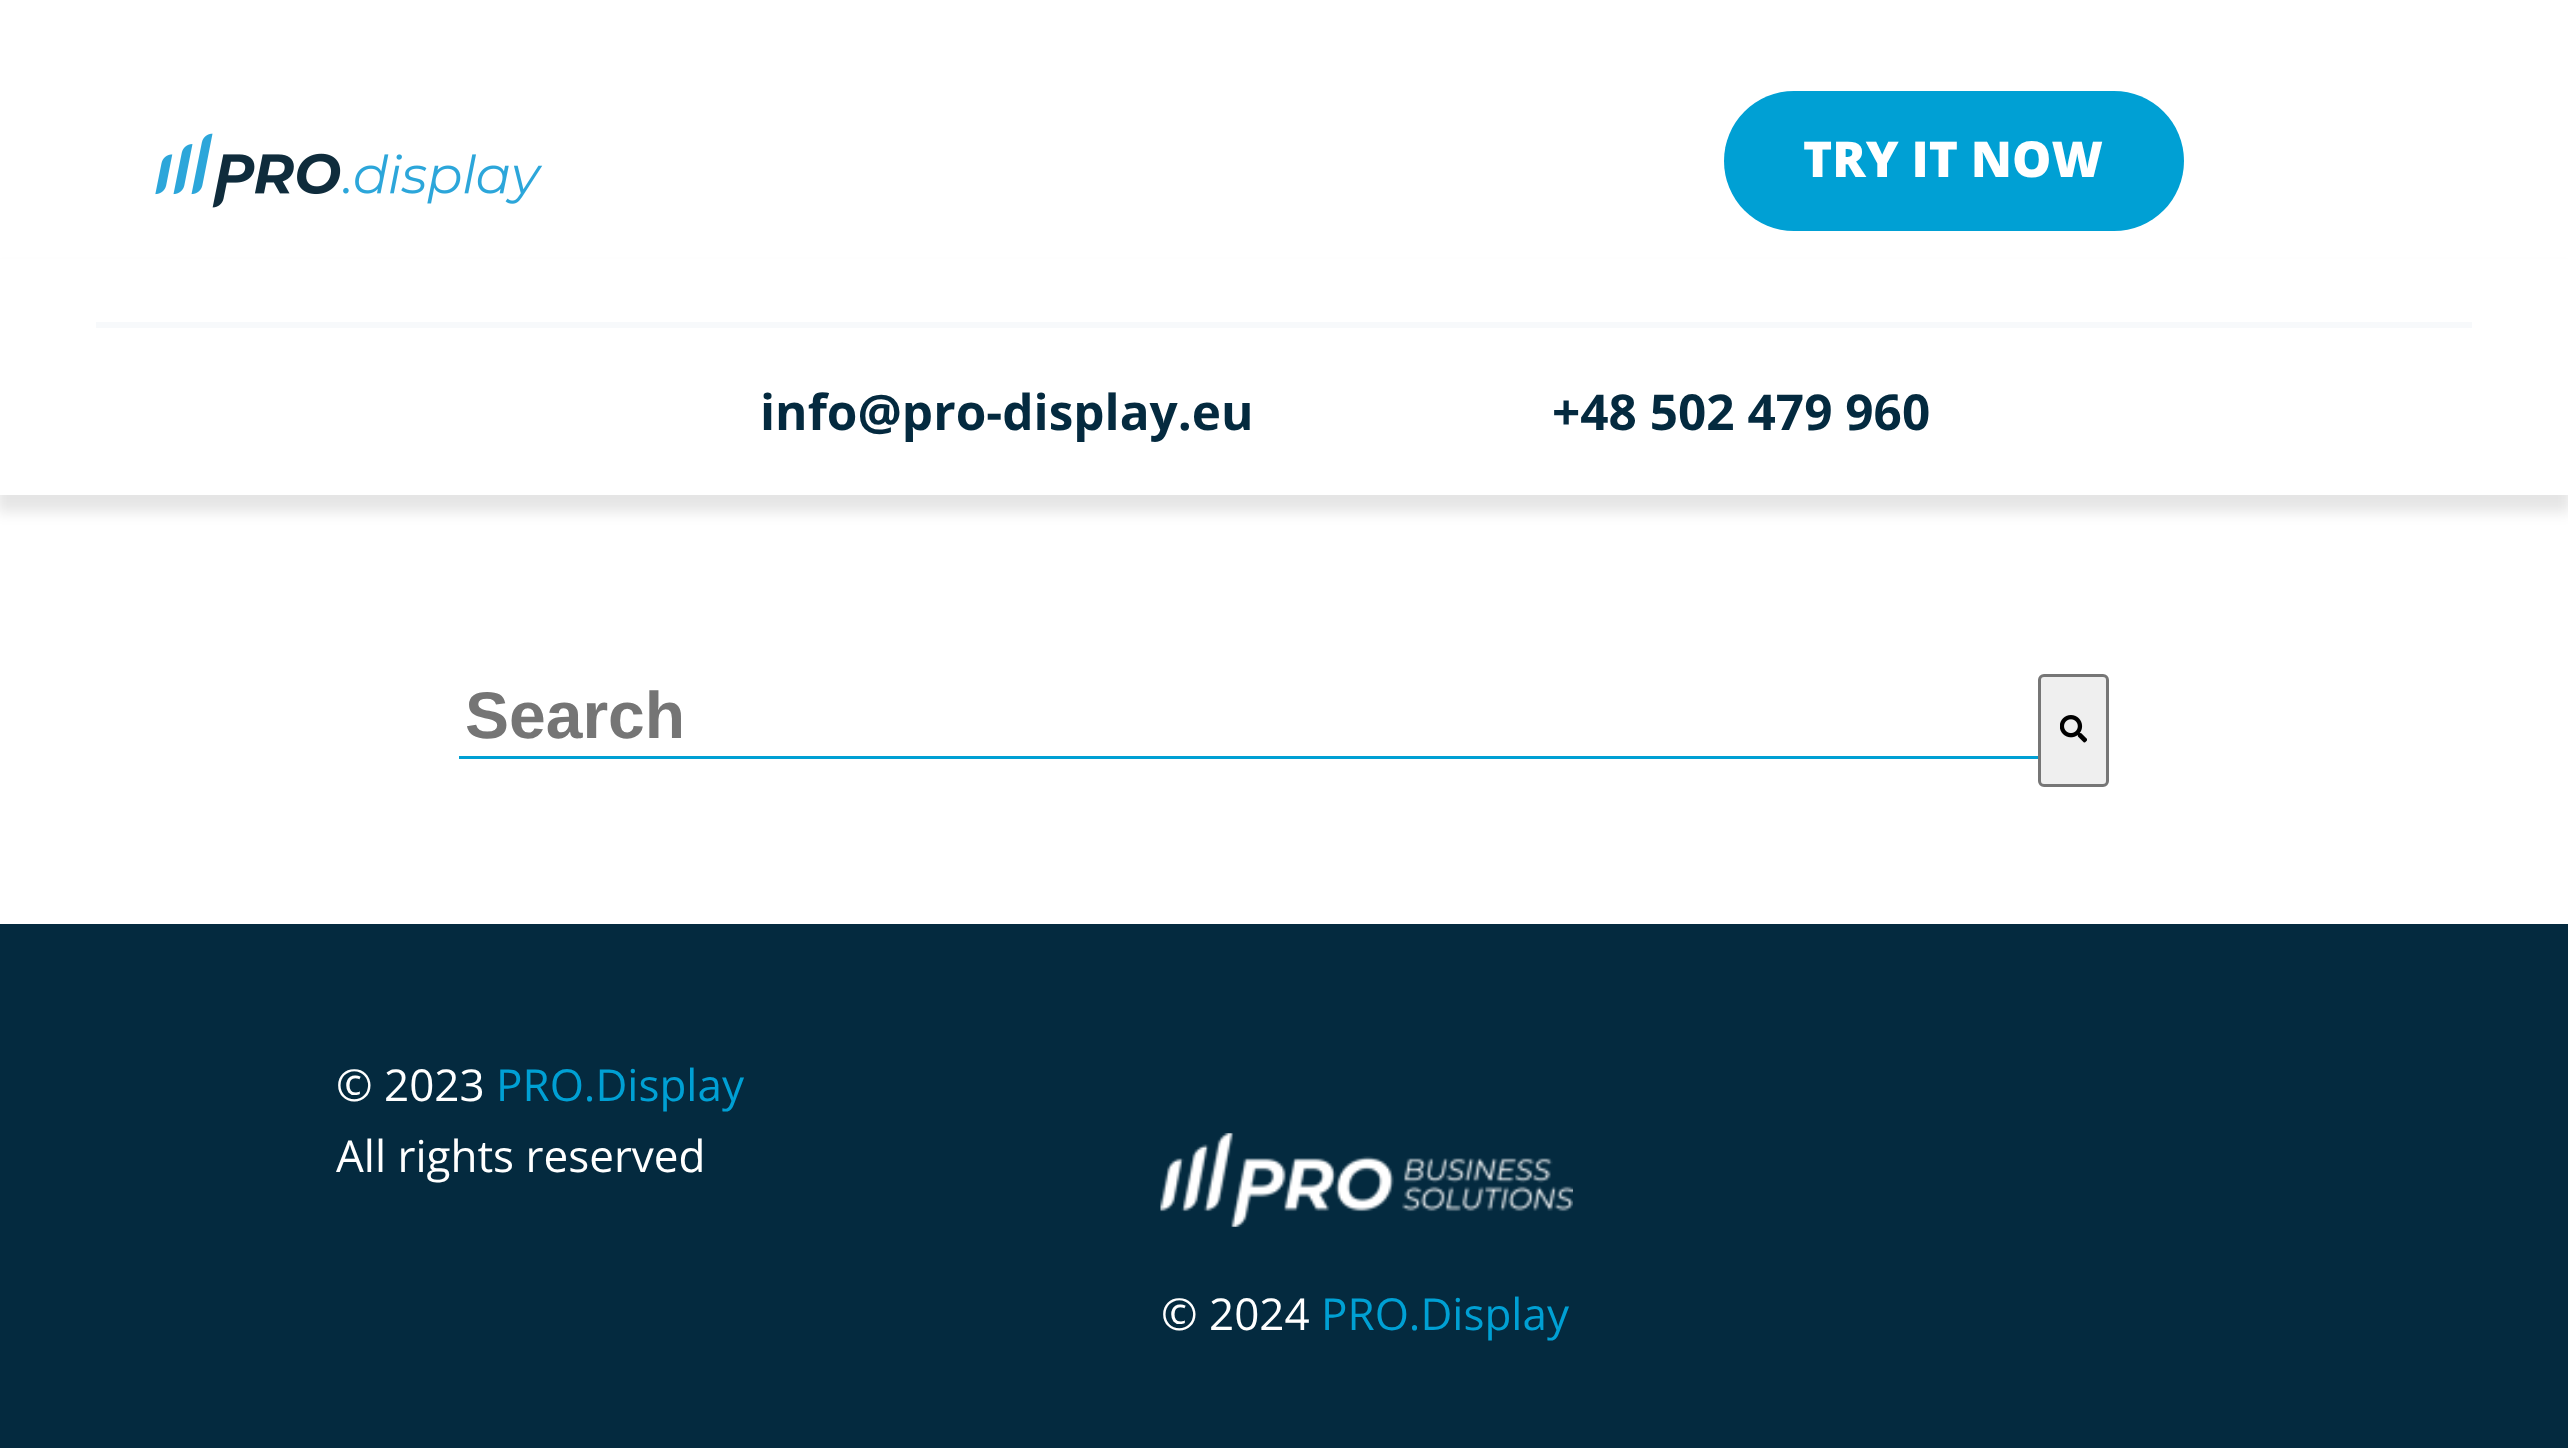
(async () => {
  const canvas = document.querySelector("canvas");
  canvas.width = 2568;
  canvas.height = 1448;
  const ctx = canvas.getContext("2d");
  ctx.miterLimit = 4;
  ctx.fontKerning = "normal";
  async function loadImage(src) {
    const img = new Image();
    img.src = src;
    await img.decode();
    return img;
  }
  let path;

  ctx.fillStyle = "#ffffff";
  ctx.fillRect(0, 0, 2568, 1448);
  ctx.save();
  path = new Path2D("M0 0H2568V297H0ZM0 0H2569V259H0Z");
  ctx.clip(path, "evenodd");
  ctx.fillStyle = "rgba(0, 0, 0, 0.1)";
  ctx.filter = "blur(7px)";
  ctx.beginPath();
  ctx.rect(-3, 11, 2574, 264);
  ctx.fill();
  ctx.filter = "none";
  ctx.restore();
  ctx.drawImage(await loadImage("img/1.png"), 155, 133, 388, 75);
  ctx.fillStyle = "#00a0d4";
  ctx.beginPath();
  ctx.roundRect(1724, 91, 460, 140, 70);
  ctx.fill();
  ctx.fillStyle = "rgba(0, 0, 0, 0.1)";
  ctx.filter = "blur(7px)";
  ctx.beginPath();
  ctx.rect(-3, 270, 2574, 242);
  ctx.fill();
  ctx.filter = "none";
  for (const [x, y, w, h, color] of [
    [0, 259, 2568, 236, "#ffffff"],
    [96, 322, 2376, 6, "#f7f9fb"],
    [459, 756, 1579, 3, "#00a0d4"],
  ]) {
    ctx.fillStyle = color;
    ctx.fillRect(x, y, w, h);
  }
  ctx.fillStyle = "#efefef";
  ctx.beginPath();
  ctx.roundRect(2039.5, 675.5, 68, 110, 4.5);
  ctx.fill();
  ctx.strokeStyle = "#767676";
  ctx.lineWidth = 3;
  ctx.stroke();
  ctx.drawImage(await loadImage("img/2.png"), 2060, 715, 27, 28);
  ctx.fillStyle = "#042a3f";
  ctx.fillRect(0, 924, 2568, 524);
  ctx.drawImage(await loadImage("img/3.png"), 1160, 1133, 413, 94);
  ctx.font = "800 49.5px Open Sans";
  ctx.fillStyle = "#ffffff";
  ctx.fillText("TRY IT NOW", 1803, 177);
  ctx.font = "bold 49.5px Open Sans";
  ctx.fillStyle = "#042a3f";
  ctx.fillText("info@pro-display.eu", 760, 430);
  ctx.fillText("+48 502 479 960", 1552, 430);
  ctx.font = "bold 66px Liberation Sans";
  ctx.fillStyle = "#757575";
  ctx.fillText("Search", 465, 738);
  ctx.font = "44px Open Sans";
  ctx.fillStyle = "#ffffff";
  ctx.fillText("© 2023", 336, 1101);
  ctx.fillStyle = "#00a0d4";
  ctx.fillText("PRO.Display", 496, 1101);
  ctx.fillStyle = "#ffffff";
  ctx.fillText("All rights reserved", 336, 1172);
  ctx.fillText("© 2024", 1161, 1330);
  ctx.fillStyle = "#00a0d4";
  ctx.fillText("PRO.Display", 1321, 1330);
})();
